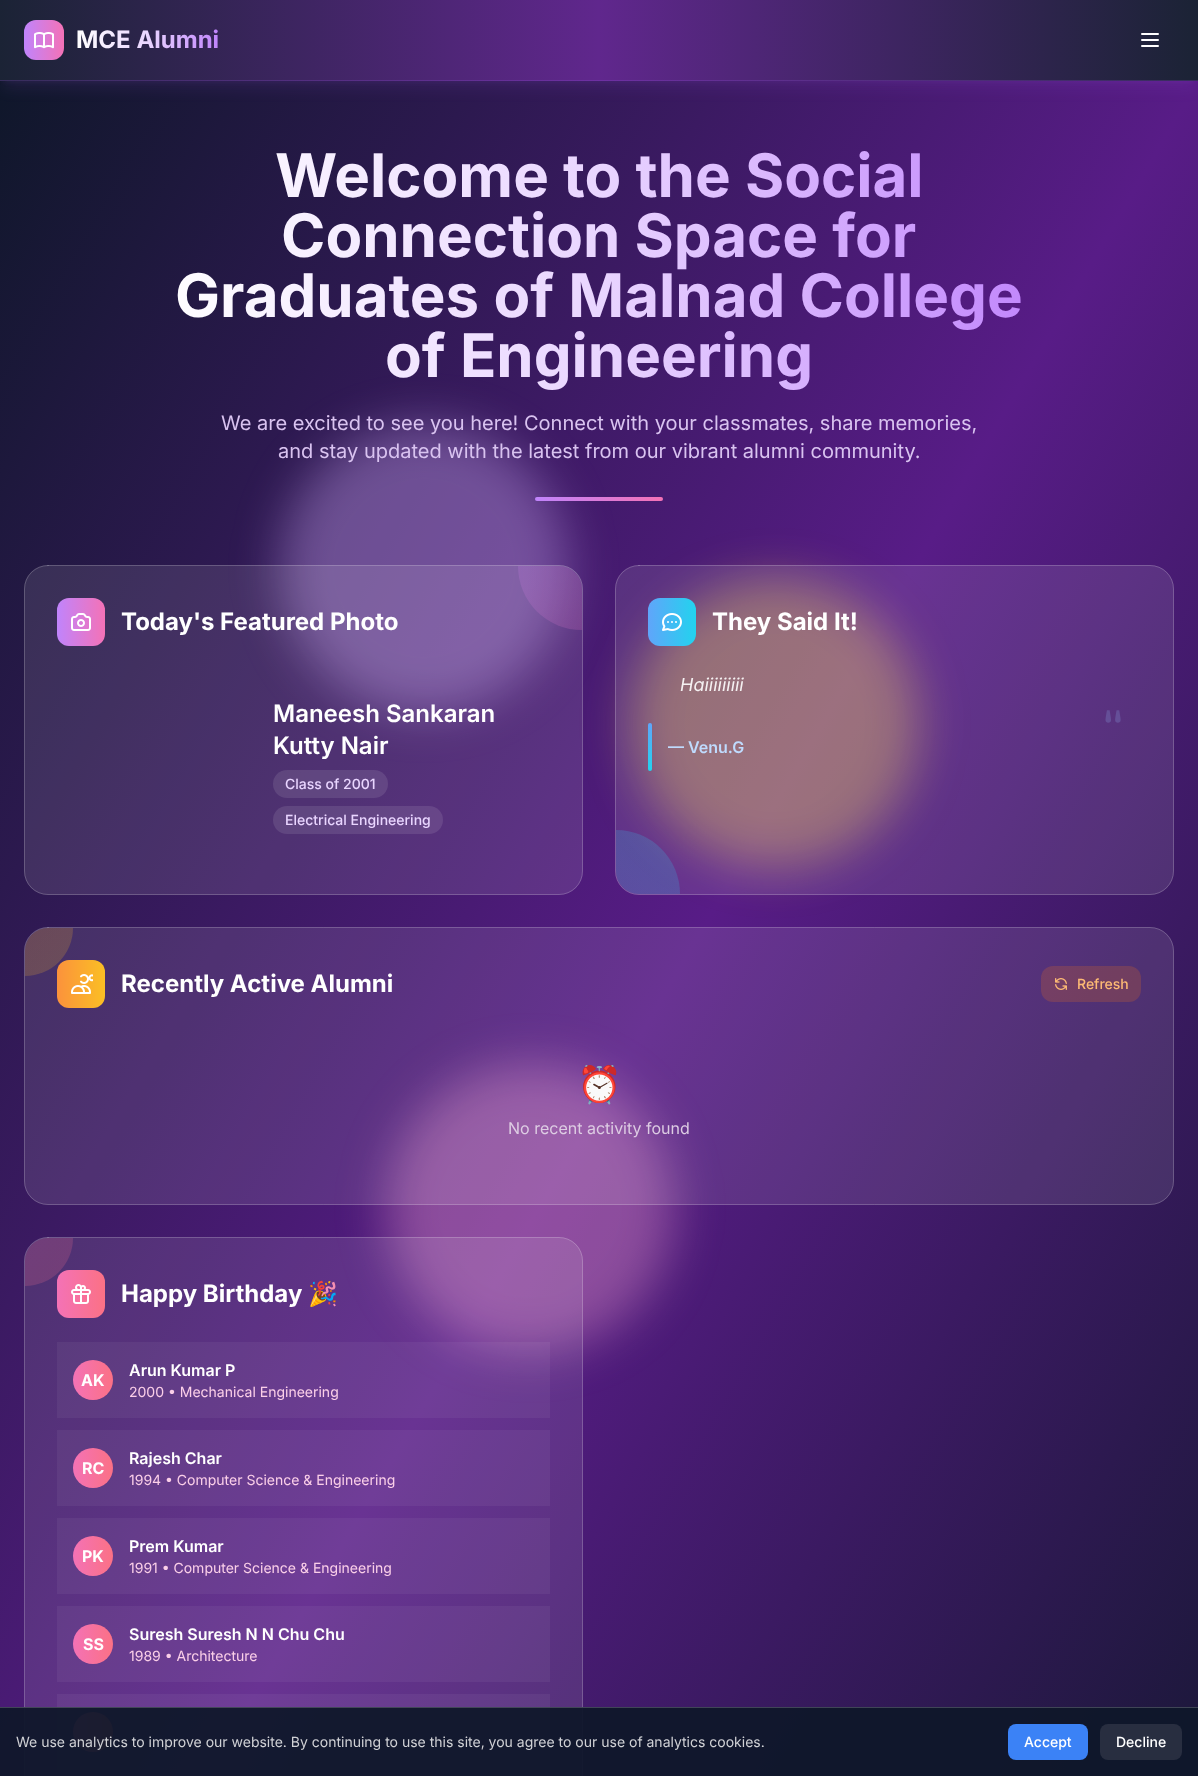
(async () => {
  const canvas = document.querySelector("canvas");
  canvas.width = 1198;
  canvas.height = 1776;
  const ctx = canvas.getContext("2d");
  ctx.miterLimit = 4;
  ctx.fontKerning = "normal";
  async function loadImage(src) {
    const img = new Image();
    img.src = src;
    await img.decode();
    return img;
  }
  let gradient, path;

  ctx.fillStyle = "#ffffff";
  ctx.fillRect(0, 0, 1198, 1776);
  gradient = ctx.createLinearGradient(-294, 584, 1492, 1628);
  gradient.addColorStop(0, "#0f172a");
  gradient.addColorStop(0.5, "#581c87");
  gradient.addColorStop(1, "#0f172a");
  ctx.fillStyle = gradient;
  ctx.fillRect(0, 81, 1198, 1695);
  ctx.fillStyle = "rgba(168, 85, 247, 0.1)";
  ctx.filter = "blur(3px)";
  ctx.beginPath();
  ctx.rect(4, 8, 1190, 73);
  ctx.fill();
  ctx.filter = "none";
  ctx.filter = "blur(7.5px)";
  ctx.beginPath();
  ctx.rect(3, 13, 1192, 75);
  ctx.fill();
  ctx.filter = "none";
  gradient = ctx.createLinearGradient(0, 40, 1198, 40);
  gradient.addColorStop(0, "#1b2335");
  gradient.addColorStop(0.5, "#60278d");
  gradient.addColorStop(1, "#1b2335");
  ctx.fillStyle = gradient;
  ctx.fillRect(0, 0, 1198, 80);
  gradient = ctx.createLinearGradient(0, 40, 1198, 40);
  gradient.addColorStop(0, "#372d5c");
  gradient.addColorStop(0.5, "#6e30a2");
  gradient.addColorStop(1, "#372d5c");
  ctx.fillStyle = gradient;
  ctx.fillRect(0, 80, 1198, 1);
  gradient = ctx.createLinearGradient(24, 40, 64, 40);
  gradient.addColorStop(0, "#c084fc");
  gradient.addColorStop(1, "#f472b6");
  ctx.fillStyle = gradient;
  ctx.beginPath();
  ctx.roundRect(24, 20, 40, 40, 12);
  ctx.fill();
  ctx.drawImage(await loadImage("img/1.png"), 34, 32, 20, 17);
  path = new Path2D("M1142 34H1158M1142 40H1158M1142 46H1158");
  ctx.strokeStyle = "#ffffff";
  ctx.lineWidth = 2;
  ctx.lineCap = "round";
  ctx.lineJoin = "round";
  ctx.stroke(path);
  ctx.fillStyle = "rgba(216, 180, 254, 0.35)";
  ctx.filter = "blur(24px)";
  ctx.beginPath();
  ctx.roundRect(280, 424, 288, 288, 144);
  ctx.fill();
  ctx.filter = "none";
  gradient = ctx.createLinearGradient(535, 499, 663, 499);
  gradient.addColorStop(0, "#c084fc");
  gradient.addColorStop(1, "#f472b6");
  ctx.fillStyle = gradient;
  ctx.beginPath();
  ctx.roundRect(535, 497, 128, 4, 2);
  ctx.fill();
  ctx.fillStyle = "rgba(253, 224, 71, 0.35)";
  ctx.filter = "blur(24px)";
  ctx.beginPath();
  ctx.roundRect(631, 579, 288, 288, 144);
  ctx.fill();
  ctx.filter = "none";
  ctx.fillStyle = "rgba(255, 255, 255, 0.1)";
  ctx.beginPath();
  ctx.roundRect(24, 565, 559, 330, 24);
  ctx.fill();
  ctx.beginPath();
  ctx.roundRect(24.5, 565.5, 558, 329, 23.5);
  ctx.strokeStyle = "rgba(255, 255, 255, 0.2)";
  ctx.lineWidth = 1;
  ctx.lineJoin = "miter";
  ctx.stroke();
  gradient = ctx.createLinearGradient(518, 502, 646, 630);
  gradient.addColorStop(0, "rgba(192, 132, 252, 0.2)");
  gradient.addColorStop(1, "rgba(244, 114, 182, 0.2)");
  ctx.fillStyle = gradient;
  ctx.beginPath();
  ctx.roundRect(518, 566, 64, 64, [0, 23, 0, 64]);
  ctx.fill();
  gradient = ctx.createLinearGradient(57, 622, 105, 622);
  gradient.addColorStop(0, "#c084fc");
  gradient.addColorStop(1, "#f472b6");
  ctx.fillStyle = gradient;
  ctx.beginPath();
  ctx.roundRect(57, 598, 48, 48, 12);
  ctx.fill();
  ctx.drawImage(await loadImage("img/2.png"), 71, 613, 20, 18);
  ctx.fillStyle = "rgba(255, 255, 255, 0.1)";
  ctx.beginPath();
  ctx.roundRect(273, 770, 115, 28, 14);
  ctx.fill();
  ctx.beginPath();
  ctx.roundRect(273, 806, 170, 28, 14);
  ctx.fill();
  ctx.beginPath();
  ctx.roundRect(615, 565, 559, 330, 24);
  ctx.fill();
  ctx.beginPath();
  ctx.roundRect(615.5, 565.5, 558, 329, 23.5);
  ctx.stroke();
  gradient = ctx.createLinearGradient(648, 622, 696, 622);
  gradient.addColorStop(0, "#60a5fa");
  gradient.addColorStop(1, "#22d3ee");
  ctx.fillStyle = gradient;
  ctx.beginPath();
  ctx.roundRect(648, 598, 48, 48, 12);
  ctx.fill();
  ctx.drawImage(await loadImage("img/3.png"), 662, 613, 20, 18);
  gradient = ctx.createLinearGradient(650, 723, 650, 771);
  gradient.addColorStop(0, "#60a5fa");
  gradient.addColorStop(1, "#22d3ee");
  ctx.fillStyle = gradient;
  ctx.beginPath();
  ctx.roundRect(648, 723, 4, 48, 2);
  ctx.fill();
  gradient = ctx.createLinearGradient(552, 958, 680, 830);
  gradient.addColorStop(0, "rgba(96, 165, 250, 0.2)");
  gradient.addColorStop(1, "rgba(34, 211, 238, 0.2)");
  ctx.fillStyle = gradient;
  ctx.beginPath();
  ctx.roundRect(616, 830, 64, 64, [0, 64, 0, 23]);
  ctx.fill();
  ctx.fillStyle = "rgba(249, 168, 212, 0.35)";
  ctx.filter = "blur(24px)";
  ctx.beginPath();
  ctx.roundRect(386, 1064, 288, 288, 144);
  ctx.fill();
  ctx.filter = "none";
  ctx.fillStyle = "rgba(255, 255, 255, 0.1)";
  ctx.beginPath();
  ctx.roundRect(24, 927, 1150, 278, 24);
  ctx.fill();
  ctx.beginPath();
  ctx.roundRect(24.5, 927.5, 1149, 277, 23.5);
  ctx.stroke();
  gradient = ctx.createLinearGradient(-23, 880, 73, 976);
  gradient.addColorStop(0, "rgba(251, 146, 60, 0.2)");
  gradient.addColorStop(1, "rgba(251, 191, 36, 0.2)");
  ctx.fillStyle = gradient;
  ctx.beginPath();
  ctx.roundRect(25, 928, 48, 48, [23, 0, 48, 0]);
  ctx.fill();
  gradient = ctx.createLinearGradient(57, 984, 105, 984);
  gradient.addColorStop(0, "#fb923c");
  gradient.addColorStop(1, "#fbbf24");
  ctx.fillStyle = gradient;
  ctx.beginPath();
  ctx.roundRect(57, 960, 48, 48, 12);
  ctx.fill();
  ctx.drawImage(await loadImage("img/4.png"), 71, 974, 22, 20);
  ctx.fillStyle = "rgba(249, 115, 22, 0.2)";
  ctx.beginPath();
  ctx.roundRect(1041, 966, 100, 36, 12);
  ctx.fill();
  ctx.drawImage(await loadImage("img/5.png"), 1055, 978, 12, 12);
  ctx.fillStyle = "rgba(255, 255, 255, 0.1)";
  ctx.beginPath();
  ctx.roundRect(24, 1237, 559, 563, 24);
  ctx.fill();
  ctx.beginPath();
  ctx.roundRect(24.5, 1237.5, 558, 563, 23.5);
  ctx.stroke();
  gradient = ctx.createLinearGradient(-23, 1190, 73, 1286);
  gradient.addColorStop(0, "rgba(244, 114, 182, 0.2)");
  gradient.addColorStop(1, "rgba(251, 113, 133, 0.2)");
  ctx.fillStyle = gradient;
  ctx.beginPath();
  ctx.roundRect(25, 1238, 48, 48, [23, 0, 48, 0]);
  ctx.fill();
  gradient = ctx.createLinearGradient(57, 1294, 105, 1294);
  gradient.addColorStop(0, "#f472b6");
  gradient.addColorStop(1, "#fb7185");
  ctx.fillStyle = gradient;
  ctx.beginPath();
  ctx.roundRect(57, 1270, 48, 48, 12);
  ctx.fill();
  ctx.drawImage(await loadImage("img/6.png"), 71, 1284, 20, 20);
  ctx.fillStyle = "rgba(255, 255, 255, 0.05)";
  ctx.fillRect(57, 1342, 493, 76);
  gradient = ctx.createLinearGradient(73, 1380, 113, 1380);
  gradient.addColorStop(0, "#f472b6");
  gradient.addColorStop(1, "#fb7185");
  ctx.fillStyle = gradient;
  ctx.beginPath();
  ctx.arc(93, 1380, 20, 0, Math.PI * 2);
  ctx.fill();
  ctx.fillStyle = "rgba(255, 255, 255, 0.05)";
  ctx.fillRect(57, 1430, 493, 76);
  gradient = ctx.createLinearGradient(73, 1468, 113, 1468);
  gradient.addColorStop(0, "#f472b6");
  gradient.addColorStop(1, "#fb7185");
  ctx.fillStyle = gradient;
  ctx.beginPath();
  ctx.arc(93, 1468, 20, 0, Math.PI * 2);
  ctx.fill();
  ctx.fillStyle = "rgba(255, 255, 255, 0.05)";
  ctx.fillRect(57, 1518, 493, 76);
  gradient = ctx.createLinearGradient(73, 1556, 113, 1556);
  gradient.addColorStop(0, "#f472b6");
  gradient.addColorStop(1, "#fb7185");
  ctx.fillStyle = gradient;
  ctx.beginPath();
  ctx.arc(93, 1556, 20, 0, Math.PI * 2);
  ctx.fill();
  ctx.fillStyle = "rgba(255, 255, 255, 0.05)";
  ctx.fillRect(57, 1606, 493, 76);
  gradient = ctx.createLinearGradient(73, 1644, 113, 1644);
  gradient.addColorStop(0, "#f472b6");
  gradient.addColorStop(1, "#fb7185");
  ctx.fillStyle = gradient;
  ctx.beginPath();
  ctx.arc(93, 1644, 20, 0, Math.PI * 2);
  ctx.fill();
  ctx.fillStyle = "rgba(255, 255, 255, 0.05)";
  ctx.fillRect(57, 1694, 493, 76);
  gradient = ctx.createLinearGradient(73, 1732, 113, 1732);
  gradient.addColorStop(0, "#f472b6");
  gradient.addColorStop(1, "#fb7185");
  ctx.fillStyle = gradient;
  ctx.beginPath();
  ctx.arc(93, 1732, 20, 0, Math.PI * 2);
  ctx.fill();
  ctx.fillStyle = "rgba(15, 23, 42, 0.95)";
  ctx.fillRect(0, 1707, 1198, 69);
  ctx.fillStyle = "rgba(255, 255, 255, 0.2)";
  ctx.fillRect(0, 1707, 1198, 1);
  ctx.fillStyle = "#3b82f6";
  ctx.beginPath();
  ctx.roundRect(1008, 1724, 80, 36, 8);
  ctx.fill();
  ctx.fillStyle = "#282e40";
  ctx.beginPath();
  ctx.roundRect(1100, 1724, 82, 36, 8);
  ctx.fill();
  ctx.font = "bold 24px Inter";
  gradient = ctx.createLinearGradient(76, 40, 219, 40);
  gradient.addColorStop(0, "#ffffff");
  gradient.addColorStop(0.5, "#e9d5ff");
  gradient.addColorStop(1, "#c084fc");
  ctx.fillStyle = gradient;
  ctx.fillText("MCE Alumni", 76, 48);
  ctx.font = "bold 60px Inter";
  gradient = ctx.createLinearGradient(151, 265, 1047, 265);
  gradient.addColorStop(0, "#ffffff");
  gradient.addColorStop(0.5, "#e9d5ff");
  gradient.addColorStop(1, "#c084fc");
  ctx.fillStyle = gradient;
  for (const [text, x, y] of [
    ["Welcome to the Social", 275, 197],
    ["Connection Space for", 281, 257],
    ["Graduates of Malnad College", 175, 317],
    ["of Engineering", 385, 377],
  ]) {
    ctx.fillText(text, x, y);
  }
  ctx.font = "20px Inter";
  ctx.fillStyle = "#d9c3f0";
  ctx.fillText("We are excited to see you here! Connect with your classmates, share memories,", 221, 430);
  ctx.fillText("and stay updated with the latest from our vibrant alumni community.", 278, 458);
  ctx.font = "bold 24px Inter";
  ctx.fillStyle = "#ffffff";
  ctx.fillText("Today's Featured Photo", 121, 630);
  ctx.font = "600 24px Inter";
  ctx.fillText("Maneesh Sankaran", 273, 722);
  ctx.fillText("Kutty Nair", 273, 754);
  ctx.font = "500 14px Inter";
  ctx.fillStyle = "#e9d5ff";
  ctx.fillText("Class of 2001", 285, 789);
  ctx.fillText("Electrical Engineering", 285, 825);
  ctx.font = "bold 24px Inter";
  ctx.fillStyle = "#ffffff";
  ctx.fillText("They Said It!", 712, 630);
  ctx.font = "italic 18px Inter";
  ctx.fillStyle = "#f5f1f2";
  ctx.fillText("Haiiiiiiiii", 680, 691);
  ctx.font = "60px Caladea";
  ctx.fillStyle = "#654f98";
  ctx.save();
  ctx.translate(1125, 682);
  ctx.rotate(180 * Math.PI / 180);
  ctx.fillText("\"", 0, 0);
  ctx.restore();
  ctx.font = "600 16px Inter";
  ctx.fillStyle = "#bfdbfe";
  ctx.fillText("— Venu.G", 668, 753);
  ctx.font = "bold 24px Inter";
  ctx.fillStyle = "#ffffff";
  ctx.fillText("Recently Active Alumni", 121, 992);
  ctx.font = "500 14px Inter";
  ctx.fillStyle = "#fdba74";
  ctx.fillText("Refresh", 1077, 989);
  ctx.font = "36px Noto Color Emoji";
  ctx.fillStyle = "#000000";
  ctx.fillText("⏰", 577, 1097);
  ctx.font = "16px Inter";
  ctx.fillStyle = "#ddcce3";
  ctx.fillText("No recent activity found", 508, 1134);
  ctx.font = "bold 24px Inter";
  ctx.fillStyle = "#ffffff";
  ctx.fillText("Happy Birthday", 121, 1302);
  ctx.font = "bold 24px Noto Color Emoji";
  ctx.fillText("🎉", 308, 1302);
  ctx.font = "bold 16px Inter";
  ctx.fillText("AK", 81, 1386);
  ctx.font = "600 16px Inter";
  ctx.fillText("Arun Kumar P", 129, 1376);
  ctx.font = "14px Inter";
  ctx.fillStyle = "#fbcfe8";
  ctx.fillText("2000 • Mechanical Engineering", 129, 1397);
  ctx.font = "bold 16px Inter";
  ctx.fillStyle = "#ffffff";
  ctx.fillText("RC", 82, 1474);
  ctx.font = "600 16px Inter";
  ctx.fillText("Rajesh Char", 129, 1464);
  ctx.font = "14px Inter";
  ctx.fillStyle = "#fbcfe8";
  ctx.fillText("1994 • Computer Science & Engineering", 129, 1485);
  ctx.font = "bold 16px Inter";
  ctx.fillStyle = "#ffffff";
  ctx.fillText("PK", 82, 1562);
  ctx.font = "600 16px Inter";
  ctx.fillText("Prem Kumar", 129, 1552);
  ctx.font = "14px Inter";
  ctx.fillStyle = "#fbcfe8";
  ctx.fillText("1991 • Computer Science & Engineering", 129, 1573);
  ctx.font = "bold 16px Inter";
  ctx.fillStyle = "#ffffff";
  ctx.fillText("SS", 83, 1650);
  ctx.font = "600 16px Inter";
  ctx.fillText("Suresh Suresh N N Chu Chu", 129, 1640);
  ctx.font = "14px Inter";
  ctx.fillStyle = "#fbcfe8";
  ctx.fillText("1989 • Architecture", 129, 1661);
  ctx.fillStyle = "#d0d1d5";
  ctx.fillText("We use analytics to improve our website. By continuing to use this site, you agree to our use of analytics cookies.", 16, 1747);
  ctx.font = "500 14px Inter";
  ctx.fillStyle = "#ffffff";
  ctx.fillText("Accept", 1024, 1747);
  ctx.fillText("Decline", 1116, 1747);
})();
